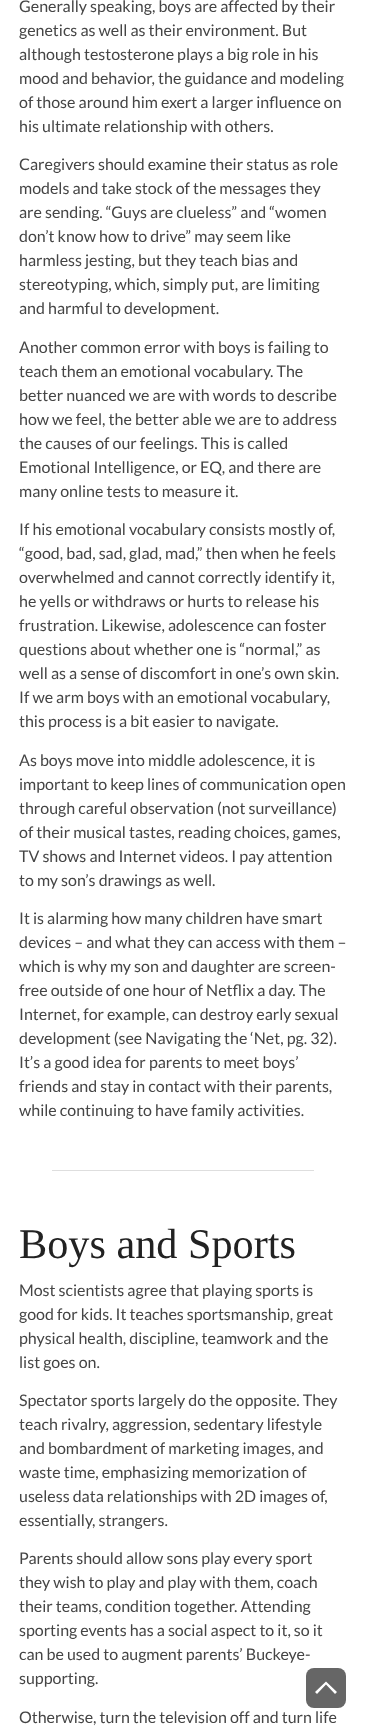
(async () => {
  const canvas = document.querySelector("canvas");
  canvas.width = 366;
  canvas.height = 1728;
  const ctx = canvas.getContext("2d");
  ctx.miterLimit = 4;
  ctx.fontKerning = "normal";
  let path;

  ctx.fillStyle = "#ffffff";
  ctx.fillRect(0, 0, 366, 1728);
  ctx.fillStyle = "#dedede";
  ctx.fillRect(52, 1170, 262, 1);
  ctx.fillStyle = "#666666";
  ctx.beginPath();
  ctx.roundRect(306, 1668, 40, 40, 8);
  ctx.fill();
  ctx.fillStyle = "#ffffff";
  path = new Path2D("M335 1694L326 1684.5L317 1694L315 1692L326 1681.5L337 1692Z");
  ctx.fill(path);
  ctx.font = "16px Lato";
  ctx.fillStyle = "#454545";
  for (const [text, x, y] of [
    ["Generally speaking, boys are affected by their", 19, 12],
    ["genetics as well as their environment. But", 19, 36],
    ["although testosterone plays a big role in his", 19, 60],
    ["mood and behavior, the guidance and modeling", 19, 84],
    ["of those around him exert a larger influence on", 19, 108],
    ["his ultimate relationship with others.", 19, 132],
    ["Caregivers should examine their status as role", 19, 170],
    ["models and take stock of the messages they", 19, 194],
    ["are sending. “Guys are clueless” and “women", 19, 218],
    ["don’t know how to drive” may seem like", 19, 242],
    ["harmless jesting, but they teach bias and", 19, 266],
    ["stereotyping, which, simply put, are limiting", 19, 290],
    ["and harmful to development.", 19, 314],
    ["Another common error with boys is failing to", 19, 353],
    ["teach them an emotional vocabulary. The", 19, 377],
    ["better nuanced we are with words to describe", 19, 401],
    ["how we feel, the better able we are to address", 19, 425],
    ["the causes of our feelings. This is called", 19, 449],
    ["Emotional Intelligence, or EQ, and there are", 19, 473],
    ["many online tests to measure it.", 19, 497],
    ["If his emotional vocabulary consists mostly of,", 19, 535],
    ["“good, bad, sad, glad, mad,” then when he feels", 19, 559],
    ["overwhelmed and cannot correctly identify it,", 19, 583],
    ["he yells or withdraws or hurts to release his", 19, 607],
    ["frustration. Likewise, adolescence can foster", 19, 631],
    ["questions about whether one is “normal,” as", 19, 655],
    ["well as a sense of discomfort in one’s own skin.", 19, 679],
    ["If we arm boys with an emotional vocabulary,", 19, 703],
    ["this process is a bit easier to navigate.", 19, 727],
    ["As boys move into middle adolescence, it is", 19, 766],
    ["important to keep lines of communication open", 19, 790],
    ["through careful observation (not surveillance)", 19, 814],
    ["of their musical tastes, reading choices, games,", 19, 838],
    ["TV shows and Internet videos. I pay attention", 19, 862],
    ["to my son’s drawings as well.", 19, 886],
    ["It is alarming how many children have smart", 19, 924],
    ["devices – and what they can access with them –", 19, 948],
    ["which is why my son and daughter are screen-", 19, 972],
    ["free outside of one hour of Netflix a day. The", 19, 996],
    ["Internet, for example, can destroy early sexual", 19, 1020],
    ["development (see Navigating the ‘Net, pg. 32).", 19, 1044],
    ["It’s a good idea for parents to meet boys’", 19, 1068],
    ["friends and stay in contact with their parents,", 19, 1092],
    ["while continuing to have family activities.", 19, 1116],
  ]) {
    ctx.fillText(text, x, y);
  }
  ctx.font = "42.25px Liberation Serif";
  ctx.fillStyle = "#222222";
  ctx.fillText("Boys and Sports", 19, 1258);
  ctx.font = "16px Lato";
  ctx.fillStyle = "#454545";
  for (const [text, x, y] of [
    ["Most scientists agree that playing sports is", 19, 1296],
    ["good for kids. It teaches sportsmanship, great", 19, 1320],
    ["physical health, discipline, teamwork and the", 19, 1344],
    ["list goes on.", 19, 1368],
    ["Spectator sports largely do the opposite. They", 19, 1406],
    ["teach rivalry, aggression, sedentary lifestyle", 19, 1430],
    ["and bombardment of marketing images, and", 19, 1454],
    ["waste time, emphasizing memorization of", 19, 1478],
    ["useless data relationships with 2D images of,", 19, 1502],
    ["essentially, strangers.", 19, 1526],
    ["Parents should allow sons play every sport", 19, 1564],
    ["they wish to play and play with them, coach", 19, 1588],
    ["their teams, condition together. Attending", 19, 1612],
    ["sporting events has a social aspect to it, so it", 19, 1636],
    ["can be used to augment parents’ Buckeye-", 19, 1660],
    ["supporting.", 19, 1684],
    ["Otherwise, turn the television off and turn life", 19, 1723],
  ]) {
    ctx.fillText(text, x, y);
  }
})();
